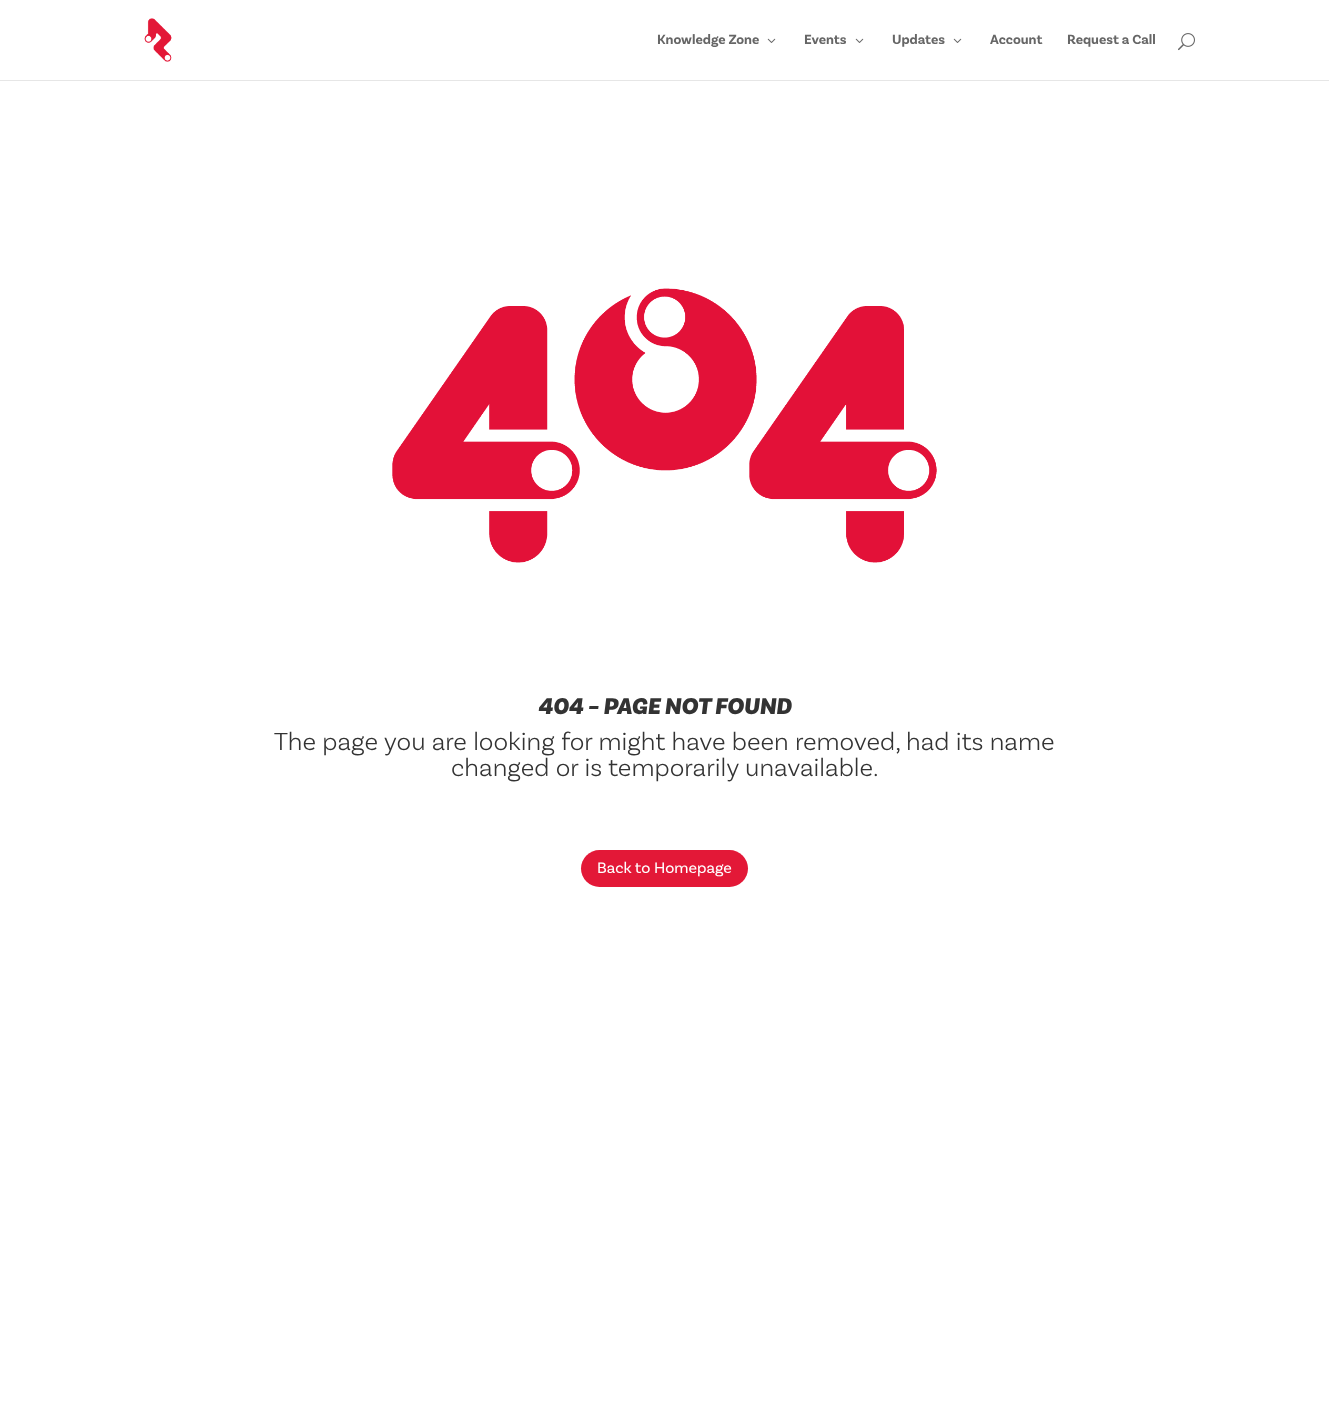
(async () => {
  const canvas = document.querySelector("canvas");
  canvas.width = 1329;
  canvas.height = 1411;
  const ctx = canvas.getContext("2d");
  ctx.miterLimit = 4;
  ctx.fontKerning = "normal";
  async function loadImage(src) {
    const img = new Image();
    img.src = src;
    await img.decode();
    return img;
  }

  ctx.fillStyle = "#ffffff";
  ctx.fillRect(0, 0, 1329, 1411);
  ctx.fillStyle = "#e6e6e6";
  ctx.fillRect(0, 80, 1329, 1);
  ctx.drawImage(await loadImage("img/1.png"), 144, 18, 28, 44);
  ctx.drawImage(await loadImage("img/2.png"), 767, 38, 9, 5);
  ctx.drawImage(await loadImage("img/2.png"), 855, 38, 9, 5);
  ctx.drawImage(await loadImage("img/2.png"), 953, 38, 9, 5);
  ctx.drawImage(await loadImage("img/3.png"), 1178, 33, 17, 18);
  ctx.drawImage(await loadImage("img/4.png"), 392, 288, 545, 275);
  ctx.fillStyle = "#e31837";
  ctx.beginPath();
  ctx.roundRect(581, 850, 167, 37, 18.5);
  ctx.fill();
  ctx.font = "bold 14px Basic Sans";
  ctx.fillStyle = "#666666";
  for (const [text, x, y] of [
    ["Knowledge Zone", 657, 44],
    ["Events", 804, 44],
    ["Updates", 892, 44],
    ["Account", 990, 44],
    ["Request a Call", 1067, 44],
  ]) {
    ctx.fillText(text, x, y);
  }
  ctx.font = "italic 900 24px Basic Sans";
  ctx.fillStyle = "#333333";
  ctx.fillText("404 – PAGE NOT FOUND", 538, 714);
  ctx.font = "300 26px Basic Sans";
  ctx.fillText("The page you are looking for might have been removed, had its name", 274, 750);
  ctx.fillText("changed or is temporarily unavailable.", 451, 776);
  ctx.font = "16px Basic Sans";
  ctx.fillStyle = "#ffffff";
  ctx.fillText("Back to Homepage", 597, 873);
})();
